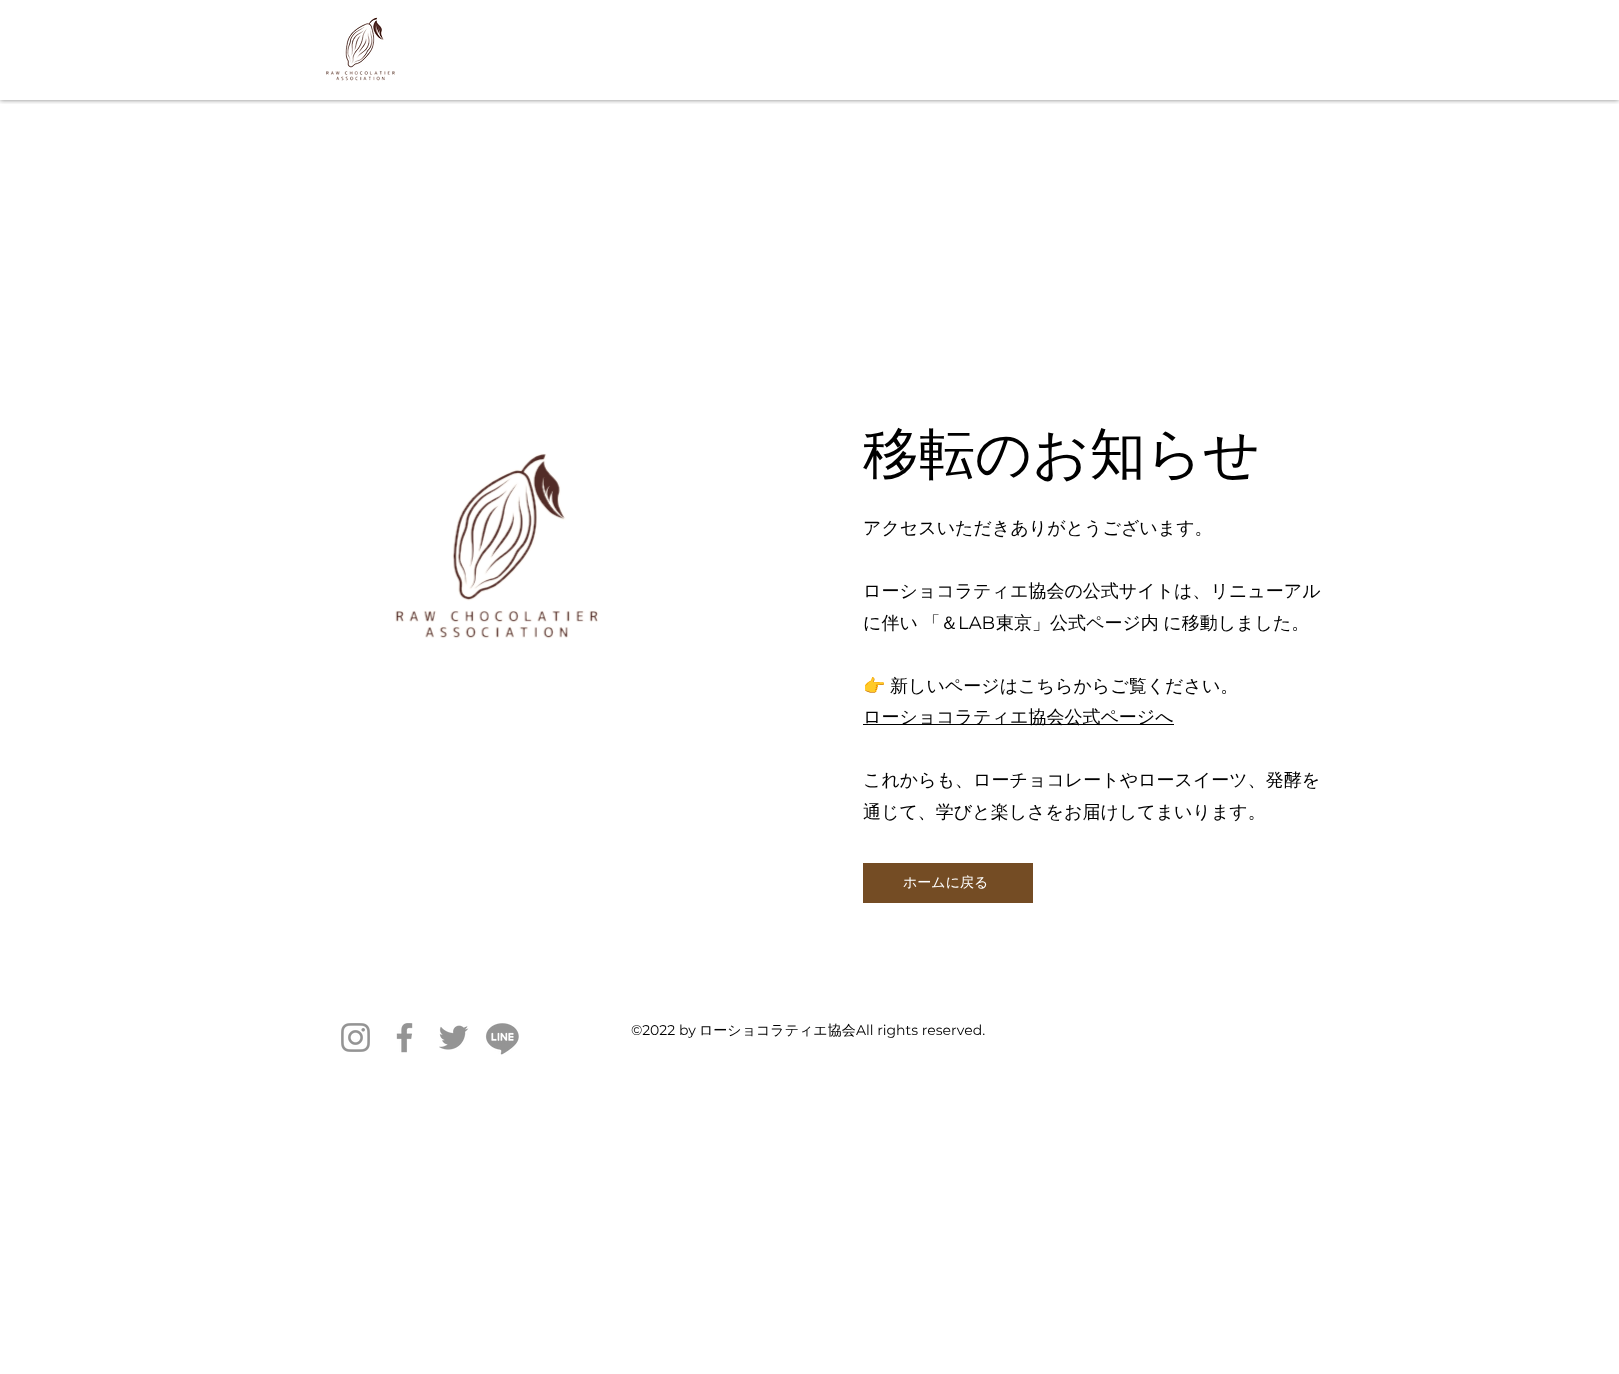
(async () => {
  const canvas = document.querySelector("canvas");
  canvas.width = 1619;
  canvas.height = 1374;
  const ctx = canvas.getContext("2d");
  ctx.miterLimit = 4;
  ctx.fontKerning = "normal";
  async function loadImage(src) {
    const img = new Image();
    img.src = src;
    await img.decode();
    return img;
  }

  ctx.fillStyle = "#ffffff";
  ctx.fillRect(0, 0, 1619, 1374);
  ctx.save();
  ctx.beginPath();
  ctx.rect(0, 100, 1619, 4);
  ctx.clip();
  ctx.fillStyle = "rgba(0, 0, 0, 0.5)";
  ctx.filter = "blur(2.5px)";
  ctx.beginPath();
  ctx.rect(0, 0, 1619, 100);
  ctx.fill();
  ctx.filter = "none";
  ctx.restore();
  ctx.drawImage(await loadImage("img/1.png"), 326, 17, 69, 64);
  ctx.drawImage(await loadImage("img/2.png"), 395, 453, 204, 186);
  ctx.fillStyle = "#000000";
  ctx.fillRect(863, 724, 311, 1);
  ctx.fillStyle = "#744c24";
  ctx.fillRect(863, 863, 170, 40);
  ctx.drawImage(await loadImage("img/3.png"), 341, 1023, 29, 29);
  ctx.drawImage(await loadImage("img/4.png"), 396, 1023, 17, 30);
  ctx.drawImage(await loadImage("img/5.png"), 439, 1025, 30, 25);
  ctx.drawImage(await loadImage("img/6.png"), 485, 1023, 34, 32);
  ctx.font = "500 56px WenQuanYi Zen Hei";
  ctx.fillStyle = "#000000";
  ctx.fillText("移転のお知らせ", 863, 473);
  ctx.font = "500 18px WenQuanYi Zen Hei";
  ctx.fillText("アクセスいただきありがとうございます。", 863, 534);
  ctx.fillText("ローショコラティエ協会の公式サイトは、リニューアル", 863, 597);
  ctx.wordSpacing = "-1px";
  ctx.fillText("に伴い 「＆", 863, 629);
  ctx.wordSpacing = "0px";
  ctx.font = "18px Montserrat";
  ctx.fillText("LAB", 958, 629);
  ctx.wordSpacing = "-1px";
  ctx.font = "500 18px WenQuanYi Zen Hei";
  ctx.fillText("東京」公式ページ内 に移動しました。", 996, 629);
  ctx.wordSpacing = "0px";
  ctx.font = "18px Noto Color Emoji";
  ctx.fillText("👉", 863, 692);
  ctx.font = "500 18px WenQuanYi Zen Hei";
  for (const [text, x, y] of [
    ["新しいページはこちらからご覧ください。", 890, 692],
    ["ローショコラティエ協会公式ページへ", 863, 723],
    ["これからも、ローチョコレートやロースイーツ、発酵を", 863, 786],
    ["通じて、学びと楽しさをお届けしてまいります。", 863, 818],
  ]) {
    ctx.fillText(text, x, y);
  }
  ctx.font = "500 14px WenQuanYi Zen Hei";
  ctx.fillStyle = "#ffffff";
  ctx.fillText("ホームに戻る", 903, 887);
  ctx.font = "14px Montserrat";
  ctx.fillStyle = "#000000";
  ctx.fillText("©2022 by", 631, 1035);
  ctx.font = "500 14px WenQuanYi Zen Hei";
  ctx.fillText("ローショコラティエ協会", 699, 1035);
  ctx.font = "14px Montserrat";
  ctx.fillText("All rights reserved.", 856, 1035);
})();
